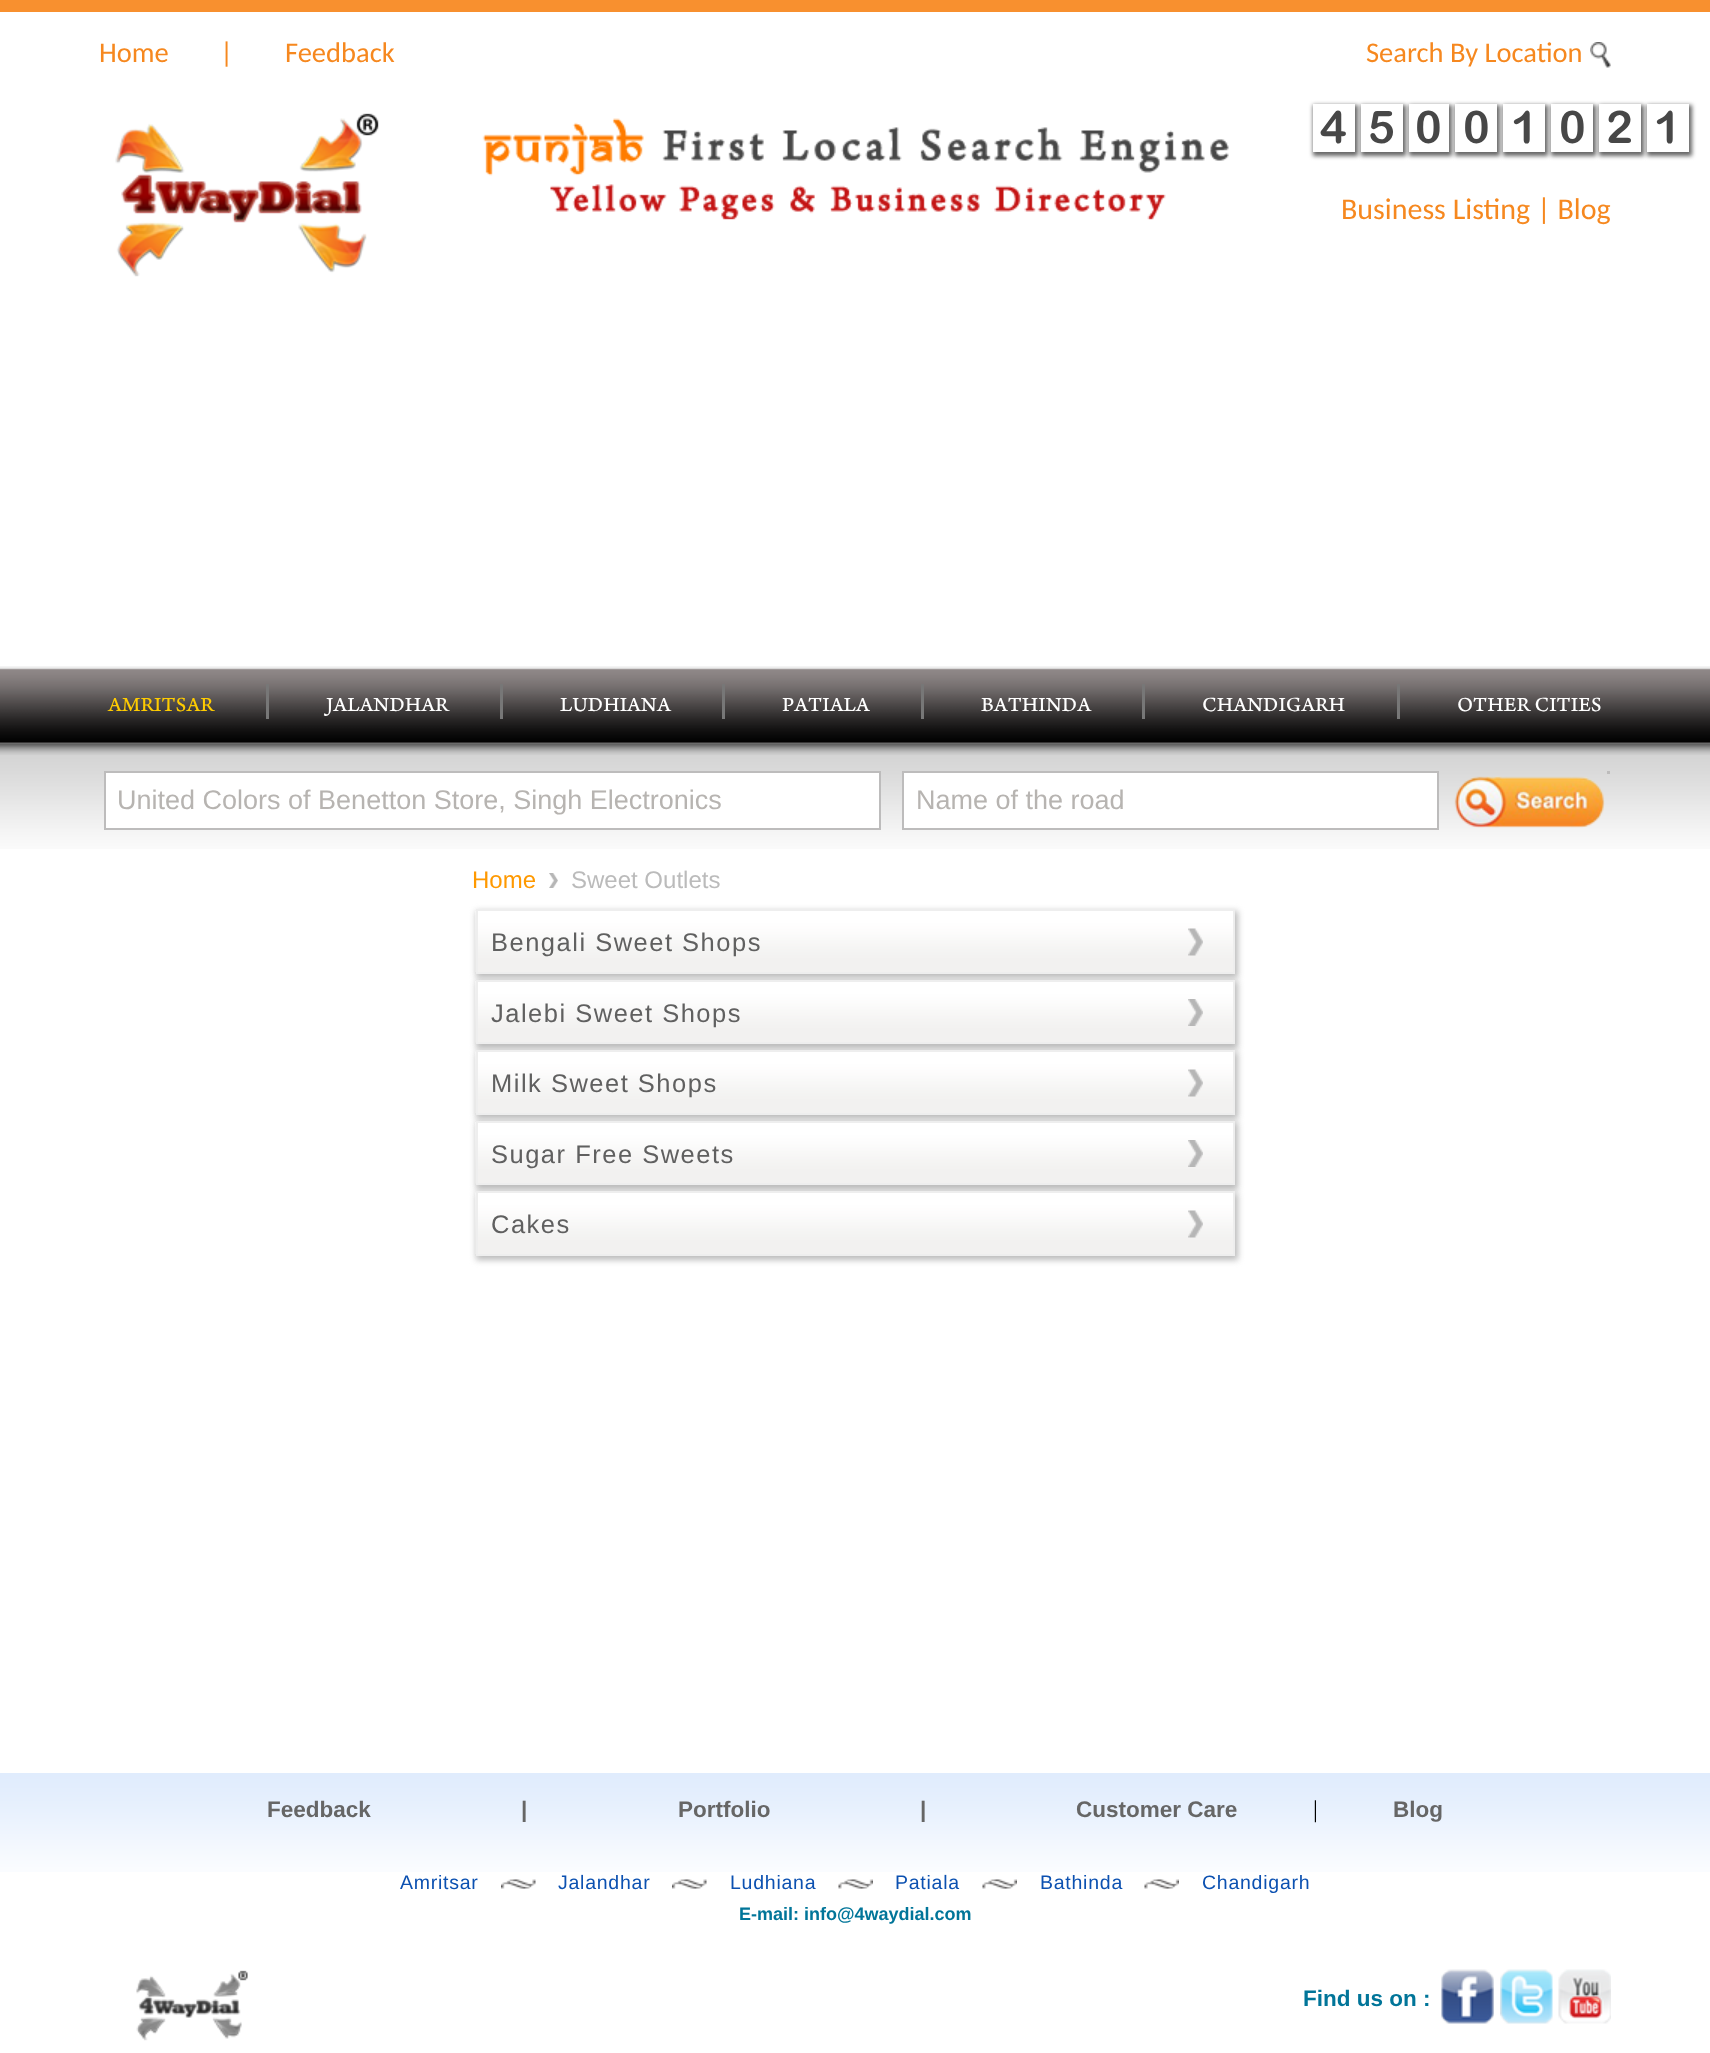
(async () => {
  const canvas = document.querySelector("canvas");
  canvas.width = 1710;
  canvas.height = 2053;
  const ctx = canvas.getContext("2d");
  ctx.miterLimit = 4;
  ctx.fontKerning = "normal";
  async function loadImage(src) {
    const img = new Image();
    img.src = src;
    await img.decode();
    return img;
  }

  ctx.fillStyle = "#ffffff";
  ctx.fillRect(0, 0, 1710, 2053);
  ctx.fillStyle = "#f8902f";
  ctx.fillRect(0, 0, 1710, 12);
  ctx.drawImage(await loadImage("img/1.png"), 1590, 42, 21, 26);
  ctx.drawImage(await loadImage("img/2.png"), 115, 113, 264, 164);
  ctx.drawImage(await loadImage("img/3.png"), 482, 118, 747, 102);
  ctx.fillStyle = "#666666";
  ctx.filter = "blur(2px)";
  ctx.beginPath();
  ctx.rect(1313, 105, 45, 51);
  ctx.fill();
  ctx.filter = "none";
  ctx.fillStyle = "#ffffff";
  ctx.fillRect(1313, 104, 42, 48);
  ctx.fillStyle = "#666666";
  ctx.filter = "blur(2px)";
  ctx.beginPath();
  ctx.rect(1361, 105, 45, 51);
  ctx.fill();
  ctx.filter = "none";
  ctx.fillStyle = "#ffffff";
  ctx.fillRect(1361, 104, 42, 48);
  ctx.fillStyle = "#666666";
  ctx.filter = "blur(2px)";
  ctx.beginPath();
  ctx.rect(1409, 105, 43, 51);
  ctx.fill();
  ctx.filter = "none";
  ctx.fillStyle = "#ffffff";
  ctx.fillRect(1409, 104, 40, 48);
  ctx.fillStyle = "#666666";
  ctx.filter = "blur(2px)";
  ctx.beginPath();
  ctx.rect(1455, 105, 45, 51);
  ctx.fill();
  ctx.filter = "none";
  ctx.fillStyle = "#ffffff";
  ctx.fillRect(1455, 104, 42, 48);
  ctx.fillStyle = "#666666";
  ctx.filter = "blur(2px)";
  ctx.beginPath();
  ctx.rect(1503, 105, 45, 51);
  ctx.fill();
  ctx.filter = "none";
  ctx.fillStyle = "#ffffff";
  ctx.fillRect(1503, 104, 42, 48);
  ctx.fillStyle = "#666666";
  ctx.filter = "blur(2px)";
  ctx.beginPath();
  ctx.rect(1551, 105, 45, 51);
  ctx.fill();
  ctx.filter = "none";
  ctx.fillStyle = "#ffffff";
  ctx.fillRect(1551, 104, 42, 48);
  ctx.fillStyle = "#666666";
  ctx.filter = "blur(2px)";
  ctx.beginPath();
  ctx.rect(1599, 105, 45, 51);
  ctx.fill();
  ctx.filter = "none";
  ctx.fillStyle = "#ffffff";
  ctx.fillRect(1599, 104, 42, 48);
  ctx.fillStyle = "#666666";
  ctx.filter = "blur(2px)";
  ctx.beginPath();
  ctx.rect(1647, 105, 45, 51);
  ctx.fill();
  ctx.filter = "none";
  ctx.fillStyle = "#ffffff";
  ctx.fillRect(1647, 104, 42, 48);
  ctx.drawImage(await loadImage("img/5.png"), 0, 744, 1710, 105);
  ctx.drawImage(await loadImage("img/4.png"), 0, 666, 1710, 89);
  for (const [x, y, w, h, color] of [
    [266, 684, 3, 35, "#777777"],
    [500, 684, 3, 35, "#777777"],
    [722, 684, 3, 35, "#777777"],
    [921, 684, 3, 35, "#777777"],
    [1142, 684, 3, 35, "#777777"],
    [1397, 684, 3, 35, "#777777"],
    [1607, 771, 3, 3, "#bdbcbc"],
  ]) {
    ctx.fillStyle = color;
    ctx.fillRect(x, y, w, h);
  }
  ctx.fillStyle = "#ffffff";
  ctx.beginPath();
  ctx.rect(105, 772, 775, 57);
  ctx.fill();
  ctx.strokeStyle = "#bdbcbc";
  ctx.lineWidth = 2;
  ctx.stroke();
  ctx.beginPath();
  ctx.rect(903, 772, 535, 57);
  ctx.fill();
  ctx.stroke();
  ctx.drawImage(await loadImage("img/6.png"), 1454, 776, 151, 52);
  ctx.drawImage(await loadImage("img/7.png"), 549, 873, 9, 15);
  ctx.fillStyle = "#bbbbbb";
  ctx.filter = "blur(3px)";
  ctx.beginPath();
  ctx.rect(476, 911, 762, 67);
  ctx.fill();
  ctx.filter = "none";
  ctx.drawImage(await loadImage("img/8.png"), 475, 911, 758, 61);
  ctx.strokeStyle = "#eeeeee";
  ctx.strokeRect(477, 910, 757, 63);
  ctx.drawImage(await loadImage("img/9.png"), 1188, 928, 15, 28);
  ctx.filter = "blur(3px)";
  ctx.beginPath();
  ctx.rect(476, 981, 762, 68);
  ctx.fill();
  ctx.filter = "none";
  ctx.drawImage(await loadImage("img/10.png"), 475, 981, 758, 62);
  ctx.strokeRect(477, 981, 757, 62);
  ctx.drawImage(await loadImage("img/11.png"), 1188, 999, 15, 27);
  ctx.filter = "blur(3px)";
  ctx.beginPath();
  ctx.rect(476, 1052, 762, 67);
  ctx.fill();
  ctx.filter = "none";
  ctx.drawImage(await loadImage("img/12.png"), 475, 1051, 758, 62);
  ctx.strokeRect(477, 1051, 757, 63);
  ctx.drawImage(await loadImage("img/9.png"), 1188, 1069, 15, 28);
  ctx.filter = "blur(3px)";
  ctx.beginPath();
  ctx.rect(476, 1122, 762, 68);
  ctx.fill();
  ctx.filter = "none";
  ctx.drawImage(await loadImage("img/10.png"), 475, 1122, 758, 62);
  ctx.strokeRect(477, 1122, 757, 62);
  ctx.drawImage(await loadImage("img/11.png"), 1188, 1140, 15, 27);
  ctx.filter = "blur(3px)";
  ctx.beginPath();
  ctx.rect(476, 1193, 762, 67);
  ctx.fill();
  ctx.filter = "none";
  ctx.drawImage(await loadImage("img/12.png"), 475, 1192, 758, 62);
  ctx.strokeRect(477, 1192, 757, 63);
  ctx.drawImage(await loadImage("img/9.png"), 1188, 1210, 15, 28);
  ctx.drawImage(await loadImage("img/13.png"), 0, 1773, 1710, 99);
  ctx.drawImage(await loadImage("img/14.png"), 501, 1879, 35, 10);
  ctx.drawImage(await loadImage("img/15.png"), 672, 1879, 35, 10);
  ctx.drawImage(await loadImage("img/16.png"), 838, 1879, 35, 10);
  ctx.drawImage(await loadImage("img/16.png"), 982, 1879, 35, 10);
  ctx.drawImage(await loadImage("img/17.png"), 1144, 1879, 35, 10);
  ctx.drawImage(await loadImage("img/18.png"), 136, 1970, 112, 71);
  ctx.drawImage(await loadImage("img/19.png"), 1441, 1969, 53, 55);
  ctx.drawImage(await loadImage("img/20.png"), 1500, 1969, 53, 55);
  ctx.drawImage(await loadImage("img/21.png"), 1558, 1969, 53, 55);
  ctx.font = "28.5px Carlito";
  ctx.fillStyle = "#f6881f";
  for (const [text, x, y] of [
    ["Home", 99, 62],
    ["|", 220, 62],
    ["Feedback", 285, 62],
    ["Search By Location", 1366, 62],
  ]) {
    ctx.fillText(text, x, y);
  }
  ctx.font = "bold 45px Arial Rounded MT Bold";
  ctx.fillStyle = "#474747";
  for (const [text, x, y] of [
    ["4", 1320, 143],
    ["5", 1368, 143],
    ["0", 1415, 143],
    ["0", 1463, 143],
    ["1", 1511, 143],
    ["0", 1559, 143],
    ["2", 1606, 143],
    ["1", 1654, 143],
  ]) {
    ctx.fillText(text, x, y);
  }
  ctx.font = "30px Carlito";
  ctx.fillStyle = "#f6881f";
  ctx.fillText("Business Listing | Blog", 1341, 219);
  ctx.font = "21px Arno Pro";
  ctx.fillStyle = "#ffcc00";
  ctx.fillText("AMRITSAR", 108, 711);
  ctx.fillStyle = "#ffffff";
  for (const [text, x, y] of [
    ["JALANDHAR", 326, 711],
    ["LUDHIANA", 560, 711],
    ["PATIALA", 782, 711],
    ["BATHINDA", 981, 711],
    ["CHANDIGARH", 1202, 711],
    ["OTHER CITIES", 1457, 711],
  ]) {
    ctx.fillText(text, x, y);
  }
  ctx.font = "27px Liberation Sans";
  ctx.fillStyle = "#b7b4b1";
  ctx.fillText("United Colors of Benetton Store, Singh Electronics", 117, 809);
  ctx.fillText("Name of the road", 916, 809);
  ctx.font = "24px Liberation Sans";
  ctx.fillStyle = "#ff9900";
  ctx.fillText("Home", 472, 888);
  ctx.fillStyle = "#bbbbbb";
  ctx.fillText("Sweet Outlets", 571, 888);
  ctx.letterSpacing = "1.5px";
  ctx.font = "25.5px Liberation Sans";
  ctx.fillStyle = "#606060";
  for (const [text, x, y] of [
    ["Bengali Sweet Shops", 491, 951],
    ["Jalebi Sweet Shops", 491, 1022],
    ["Milk Sweet Shops", 491, 1092],
    ["Sugar Free Sweets", 491, 1163],
    ["Cakes", 491, 1233],
  ]) {
    ctx.fillText(text, x, y);
  }
  ctx.letterSpacing = "0px";
  ctx.font = "bold 22.5px Liberation Sans";
  ctx.fillStyle = "#666666";
  for (const [text, x, y] of [
    ["Feedback", 267, 1817],
    ["|", 521, 1817],
    ["Portfolio", 678, 1817],
    ["|", 920, 1817],
    ["Customer Care", 1076, 1817],
  ]) {
    ctx.fillText(text, x, y);
  }
  ctx.font = "24px Liberation Serif";
  ctx.fillStyle = "#000000";
  ctx.fillText("|", 1313, 1817);
  ctx.font = "bold 22.5px Liberation Sans";
  ctx.fillStyle = "#666666";
  ctx.fillText("Blog", 1393, 1817);
  ctx.letterSpacing = "0.75px";
  ctx.font = "19.5px Liberation Sans";
  ctx.fillStyle = "#0c51b1";
  for (const [text, x, y] of [
    ["Amritsar", 400, 1889],
    ["Jalandhar", 558, 1889],
    ["Ludhiana", 730, 1889],
    ["Patiala", 895, 1889],
    ["Bathinda", 1040, 1889],
    ["Chandigarh", 1202, 1889],
  ]) {
    ctx.fillText(text, x, y);
  }
  ctx.letterSpacing = "0px";
  ctx.font = "bold 18px Liberation Sans";
  ctx.fillStyle = "#017599";
  ctx.fillText("E-mail: info@4waydial.com", 739, 1920);
  ctx.font = "bold 22.5px Liberation Sans";
  ctx.fillText("Find us on :", 1303, 2006);
})();
